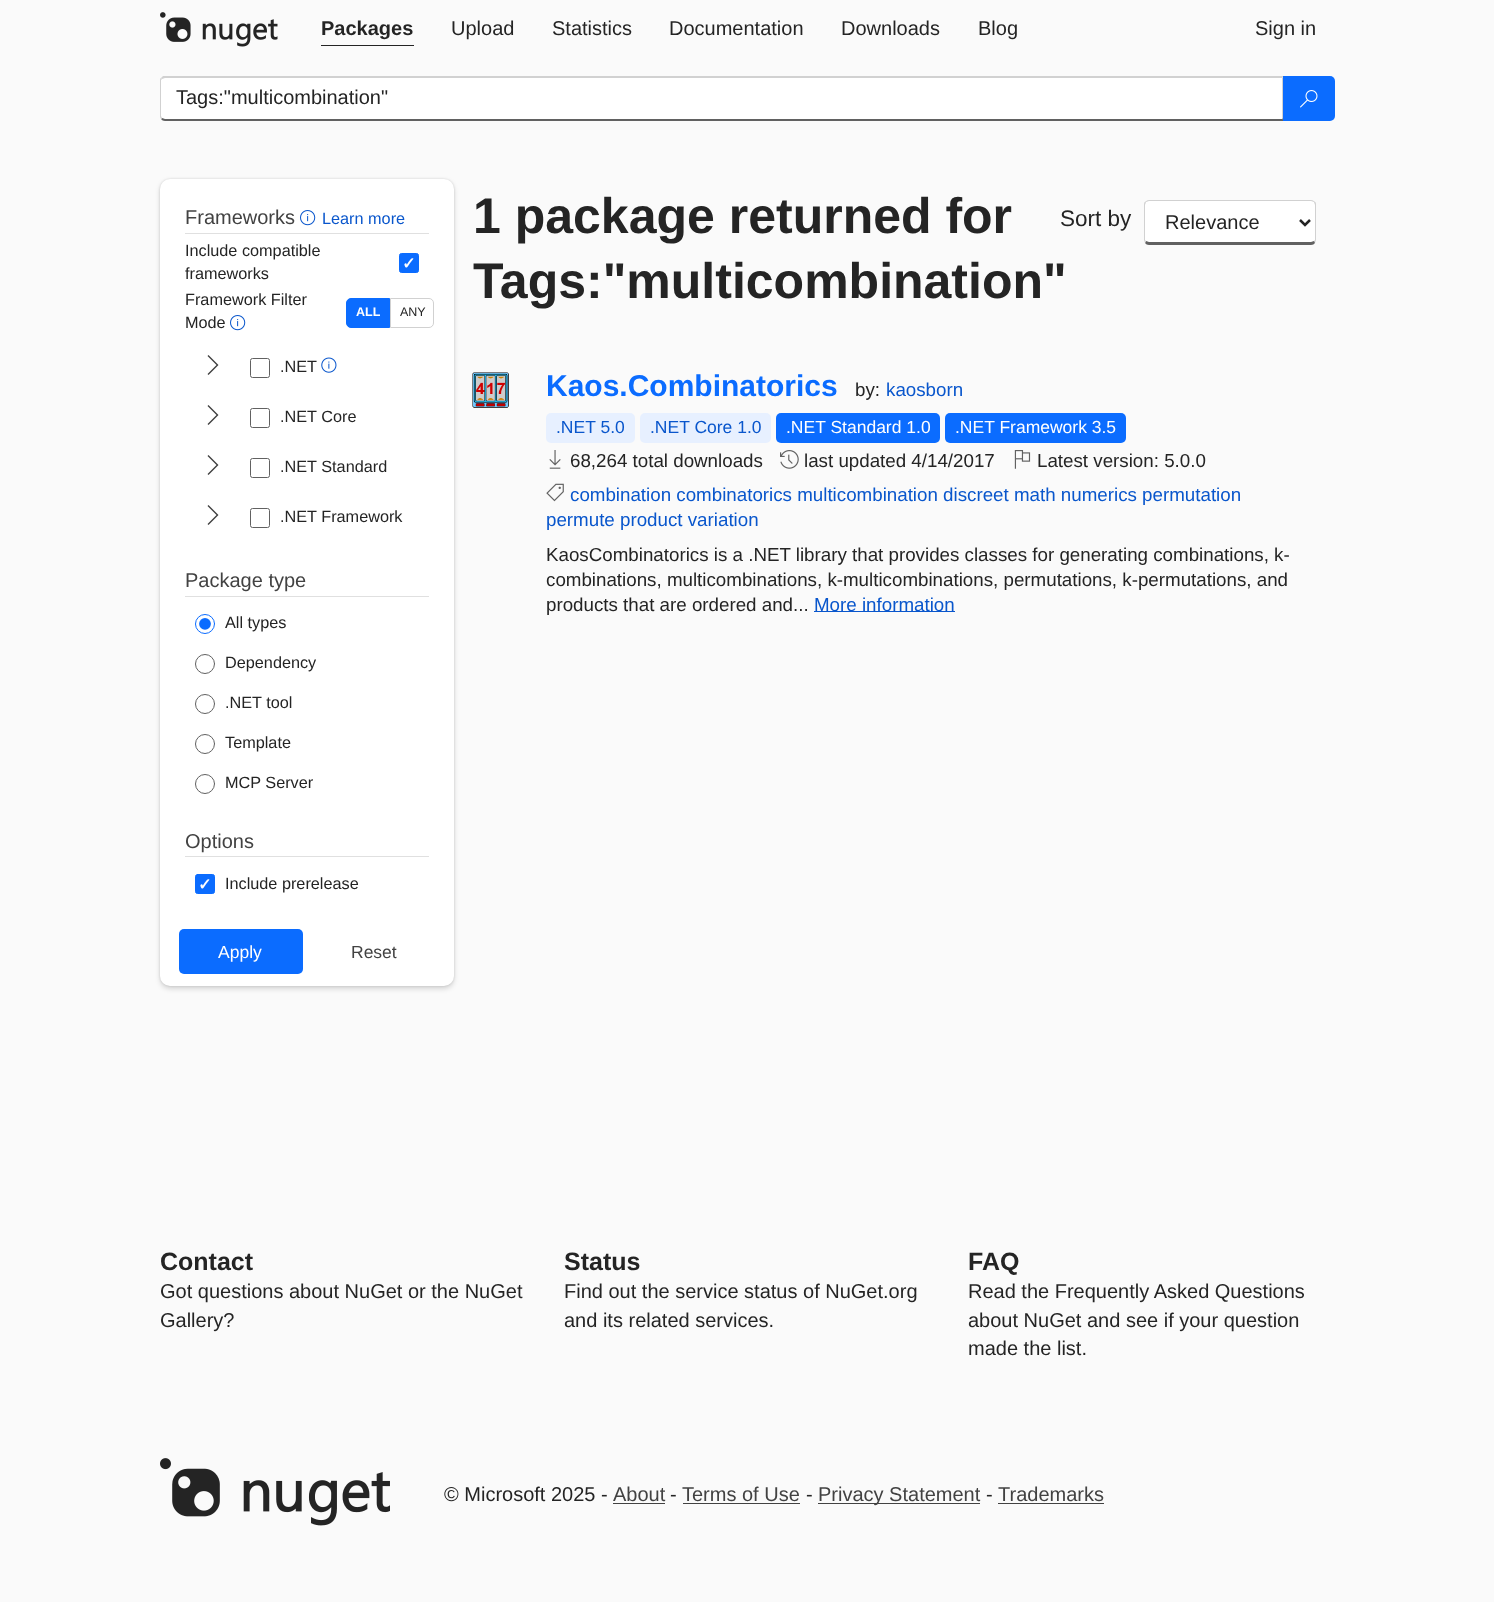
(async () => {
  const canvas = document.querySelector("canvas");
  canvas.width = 1494;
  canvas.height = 1602;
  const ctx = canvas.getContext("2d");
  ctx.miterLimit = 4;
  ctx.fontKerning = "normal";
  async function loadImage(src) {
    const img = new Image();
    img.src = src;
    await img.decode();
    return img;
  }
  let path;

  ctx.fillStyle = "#fafafa";
  ctx.fillRect(0, 0, 1494, 1602);
  ctx.drawImage(await loadImage("img/1.png"), 160, 12, 118, 35);
  ctx.fillStyle = "#242424";
  ctx.fillRect(321, 45, 93, 1);
  ctx.fillStyle = "#ffffff";
  path = new Path2D("M165 78H1282V119H165C163 119 161 118 161 116V81C161 79 163 78 165 78Z");
  ctx.fill(path);
  ctx.fillStyle = "#d1d1d1";
  path = new Path2D("M165 78L162 79L161 78L163 76H1284L1282 78Z");
  ctx.fill(path);
  path = new Path2D("M1284 76V121L1282 118V78Z");
  ctx.fill(path);
  ctx.fillStyle = "#616161";
  path = new Path2D("M1284 121H165C163 121 162 120 161 119L162 118L165 119H1282V118Z");
  ctx.fill(path);
  ctx.fillStyle = "#d1d1d1";
  path = new Path2D("M160 81V116C160 117 160 118 161 119L162 118L161 116V80L162 79L161 78C160 78 160 80 160 81Z");
  ctx.fill(path);
  ctx.fillStyle = "#0b6cff";
  ctx.beginPath();
  ctx.roundRect(1283, 76, 52, 45, [0, 5, 5, 0]);
  ctx.fill();
  ctx.drawImage(await loadImage("img/2.png"), 1300, 90, 18, 18);
  ctx.fillStyle = "rgba(0, 0, 0, 0.14)";
  ctx.filter = "blur(2.5px)";
  ctx.beginPath();
  ctx.roundRect(160, 181, 294, 808, 10);
  ctx.fill();
  ctx.filter = "none";
  ctx.fillStyle = "rgba(0, 0, 0, 0.12)";
  ctx.filter = "blur(1px)";
  ctx.beginPath();
  ctx.roundRect(160, 179, 294, 807, 10);
  ctx.fill();
  ctx.filter = "none";
  ctx.fillStyle = "#ffffff";
  ctx.beginPath();
  ctx.roundRect(160, 179, 294, 807, 10);
  ctx.fill();
  ctx.fillStyle = "#e0e0e0";
  ctx.fillRect(185, 233, 244, 1);
  ctx.drawImage(await loadImage("img/3.png"), 300, 210, 16, 16);
  ctx.fillStyle = "#0b6cff";
  ctx.beginPath();
  ctx.roundRect(399.5, 253.5, 19, 19, 2);
  ctx.fill();
  ctx.strokeStyle = "#0b6cff";
  ctx.stroke();
  ctx.drawImage(await loadImage("img/3.png"), 230, 315, 16, 16);
  ctx.beginPath();
  ctx.roundRect(346.5, 298.5, 43, 29, [4.5, 0, 0, 4.5]);
  ctx.fill();
  ctx.stroke();
  ctx.beginPath();
  ctx.roundRect(390.5, 298.5, 43, 29, [0, 4.5, 4.5, 0]);
  ctx.strokeStyle = "#d1d1d1";
  ctx.stroke();
  ctx.fillStyle = "#424242";
  path = new Path2D("M207.5 374L216.5 365L207.5 356L208.5 355L218.5 365L208.5 375Z");
  ctx.fill(path);
  ctx.beginPath();
  ctx.roundRect(250.5, 358.5, 19, 19, 2);
  ctx.strokeStyle = "#616161";
  ctx.stroke();
  ctx.drawImage(await loadImage("img/4.png"), 321, 357, 16, 16);
  path = new Path2D("M207.5 424L216.5 415L207.5 406L208.5 405L218.5 415L208.5 425Z");
  ctx.fill(path);
  ctx.beginPath();
  ctx.roundRect(250.5, 408.5, 19, 19, 2);
  ctx.stroke();
  path = new Path2D("M207.5 474L216.5 465L207.5 456L208.5 455L218.5 465L208.5 475Z");
  ctx.fill(path);
  ctx.beginPath();
  ctx.roundRect(250.5, 458.5, 19, 19, 2);
  ctx.stroke();
  path = new Path2D("M207.5 524L216.5 515L207.5 506L208.5 505L218.5 515L208.5 525Z");
  ctx.fill(path);
  ctx.beginPath();
  ctx.roundRect(250.5, 508.5, 19, 19, 2);
  ctx.stroke();
  ctx.fillStyle = "#e0e0e0";
  ctx.fillRect(185, 596, 244, 1);
  path = new Path2D("M205 623.8H205.2");
  ctx.strokeStyle = "#0b6cff";
  ctx.lineWidth = 11.8;
  ctx.lineCap = "round";
  ctx.setLineDash([0, 17.5]);
  ctx.stroke(path);
  ctx.beginPath();
  ctx.arc(205, 624, 9.5, 0, Math.PI * 2);
  ctx.lineWidth = 1;
  ctx.setLineDash([]);
  ctx.stroke();
  ctx.beginPath();
  ctx.arc(205, 664, 9.5, 0, Math.PI * 2);
  ctx.strokeStyle = "#616161";
  ctx.stroke();
  ctx.beginPath();
  ctx.arc(205, 704, 9.5, 0, Math.PI * 2);
  ctx.stroke();
  ctx.beginPath();
  ctx.arc(205, 744, 9.5, 0, Math.PI * 2);
  ctx.stroke();
  ctx.beginPath();
  ctx.arc(205, 784, 9.5, 0, Math.PI * 2);
  ctx.stroke();
  ctx.fillRect(185, 856, 244, 1);
  ctx.fillStyle = "#0b6cff";
  ctx.beginPath();
  ctx.roundRect(195.5, 874.5, 19, 19, 2);
  ctx.fill();
  ctx.strokeStyle = "#0b6cff";
  ctx.stroke();
  ctx.beginPath();
  ctx.roundRect(179, 929, 124, 45, 5);
  ctx.fill();
  ctx.fillStyle = "#ffffff";
  path = new Path2D("M1149 201H1311C1313 201 1315 203 1315 205V240C1315 241 1313 242 1311 242H1149C1147 242 1145 241 1145 240V205C1145 203 1147 201 1149 201Z");
  ctx.fill(path);
  ctx.fillStyle = "#d1d1d1";
  path = new Path2D("M1149 200C1147 200 1146 201 1145 202H1146L1149 201H1311L1314 202H1315C1314 201 1313 200 1311 200Z");
  ctx.fill(path);
  path = new Path2D("M1315 202C1316 202 1316 204 1316 205V240L1315 243L1314 241L1315 240V205L1314 202Z");
  ctx.fill(path);
  ctx.fillStyle = "#616161";
  path = new Path2D("M1149 245H1311C1313 245 1314 244 1315 243L1314 241L1311 242H1149L1146 241L1145 243C1146 244 1147 245 1149 245Z");
  ctx.fill(path);
  ctx.fillStyle = "#d1d1d1";
  path = new Path2D("M1145 202C1144 202 1144 204 1144 205V240L1145 243L1146 241L1145 240V205L1146 202Z");
  ctx.fill(path);
  path = new Path2D("M1300 220L1305 225L1310 220");
  ctx.strokeStyle = "#242424";
  ctx.lineWidth = 2.5;
  ctx.lineCap = "butt";
  ctx.stroke(path);
  ctx.drawImage(await loadImage("img/5.png"), 472, 372, 37, 36);
  ctx.fillStyle = "#e7f0ff";
  ctx.beginPath();
  ctx.roundRect(546, 413, 89, 30, 5);
  ctx.fill();
  ctx.beginPath();
  ctx.roundRect(640, 413, 131, 30, 5);
  ctx.fill();
  ctx.fillStyle = "#0b6cff";
  ctx.beginPath();
  ctx.roundRect(776, 413, 164, 30, 5);
  ctx.fill();
  ctx.beginPath();
  ctx.roundRect(945, 413, 181, 30, 5);
  ctx.fill();
  ctx.drawImage(await loadImage("img/6.png"), 549, 450, 12, 19);
  ctx.drawImage(await loadImage("img/7.png"), 780, 450, 19, 19);
  ctx.drawImage(await loadImage("img/8.png"), 1014, 450, 17, 19);
  ctx.drawImage(await loadImage("img/9.png"), 546, 483, 18, 19);
  ctx.fillStyle = "#0956cc";
  ctx.fillRect(814, 611, 141, 1);
  ctx.drawImage(await loadImage("img/10.png"), 160, 1458, 230, 68);
  for (const [x, y, w, h, color] of [
    [613, 1503, 52, 1, "#424242"],
    [683, 1503, 117, 1, "#424242"],
    [818, 1503, 162, 1, "#424242"],
    [998, 1503, 106, 1, "#424242"],
  ]) {
    ctx.fillStyle = color;
    ctx.fillRect(x, y, w, h);
  }
  ctx.font = "bold 20px Liberation Sans";
  ctx.fillStyle = "#242424";
  ctx.fillText("Packages", 321, 35);
  ctx.font = "20px Liberation Sans";
  for (const [text, x, y] of [
    ["Upload", 451, 35],
    ["Statistics", 552, 35],
    ["Documentation", 669, 35],
    ["Downloads", 841, 35],
    ["Blog", 978, 35],
    ["Sign in", 1255, 35],
    ["Tags:\"multicombination\"", 176, 104],
  ]) {
    ctx.fillText(text, x, y);
  }
  ctx.fillStyle = "#424242";
  ctx.fillText("Frameworks", 185, 224);
  ctx.font = "16.25px Liberation Sans";
  ctx.fillStyle = "#0956cc";
  ctx.fillText("Learn more", 322, 224);
  ctx.fillStyle = "#242424";
  ctx.fillText("Include compatible", 185, 256);
  ctx.fillText("frameworks", 185, 279);
  ctx.font = "bold 16.25px DejaVu Sans";
  ctx.fillStyle = "#ffffff";
  ctx.fillText("✓", 402, 269);
  ctx.font = "16.25px Liberation Sans";
  ctx.fillStyle = "#242424";
  ctx.fillText("Framework Filter", 185, 305);
  ctx.fillText("Mode", 185, 328);
  ctx.font = "bold 12.5px Liberation Sans";
  ctx.fillStyle = "#ffffff";
  ctx.fillText("ALL", 356, 316);
  ctx.font = "12.5px Liberation Sans";
  ctx.fillStyle = "#242424";
  ctx.fillText("ANY", 400, 316);
  ctx.font = "16.25px Liberation Sans";
  for (const [text, x, y] of [
    [".NET", 280, 372],
    [".NET Core", 280, 422],
    [".NET Standard", 280, 472],
    [".NET Framework", 280, 522],
  ]) {
    ctx.fillText(text, x, y);
  }
  ctx.font = "20px Liberation Sans";
  ctx.fillStyle = "#424242";
  ctx.fillText("Package type", 185, 587);
  ctx.font = "16.25px Liberation Sans";
  ctx.fillStyle = "#242424";
  for (const [text, x, y] of [
    ["All types", 225, 628],
    ["Dependency", 225, 668],
    [".NET tool", 225, 708],
    ["Template", 225, 748],
    ["MCP Server", 225, 788],
  ]) {
    ctx.fillText(text, x, y);
  }
  ctx.font = "20px Liberation Sans";
  ctx.fillStyle = "#424242";
  ctx.fillText("Options", 185, 848);
  ctx.font = "bold 16.25px DejaVu Sans";
  ctx.fillStyle = "#ffffff";
  ctx.fillText("✓", 198, 890);
  ctx.font = "16.25px Liberation Sans";
  ctx.fillStyle = "#242424";
  ctx.fillText("Include prerelease", 225, 889);
  ctx.font = "17.5px Liberation Sans";
  ctx.fillStyle = "#ffffff";
  ctx.fillText("Apply", 218, 958);
  ctx.fillStyle = "#424242";
  ctx.fillText("Reset", 351, 958);
  ctx.font = "bold 50px Liberation Sans";
  ctx.fillStyle = "#242424";
  ctx.fillText("1 package returned for", 473, 233);
  ctx.fillText("Tags:\"multicombination\"", 473, 298);
  ctx.font = "22.5px Liberation Sans";
  ctx.fillText("Sort by", 1060, 226);
  ctx.font = "20px Liberation Sans";
  ctx.fillText("Relevance", 1165, 229);
  ctx.font = "bold 30px Liberation Sans";
  ctx.fillStyle = "#0b6cff";
  ctx.fillText("Kaos.Combinatorics", 546, 396);
  ctx.font = "18.75px Liberation Sans";
  ctx.fillStyle = "#242424";
  ctx.fillText("by:", 855, 396);
  ctx.fillStyle = "#0956cc";
  ctx.fillText("kaosborn", 886, 396);
  ctx.font = "17.5px Liberation Sans";
  ctx.fillText(".NET 5.0", 556, 433);
  ctx.fillText(".NET Core 1.0", 650, 433);
  ctx.fillStyle = "#ffffff";
  ctx.fillText(".NET Standard 1.0", 786, 433);
  ctx.fillText(".NET Framework 3.5", 955, 433);
  ctx.font = "18.75px Liberation Sans";
  ctx.fillStyle = "#242424";
  for (const [text, x, y] of [
    ["68,264 total downloads", 570, 467],
    ["last updated 4/14/2017", 804, 467],
    ["Latest version: 5.0.0", 1037, 467],
  ]) {
    ctx.fillText(text, x, y);
  }
  ctx.fillStyle = "#0956cc";
  ctx.fillText("combination combinatorics multicombination discreet math numerics permutation", 570, 501);
  ctx.fillText("permute product variation", 546, 526);
  ctx.fillStyle = "#242424";
  for (const [text, x, y] of [
    ["KaosCombinatorics is a .NET library that provides classes for generating combinations, k-", 546, 561],
    ["combinations, multicombinations, k-multicombinations, permutations, k-permutations, and", 546, 586],
    ["products that are ordered and...", 546, 611],
  ]) {
    ctx.fillText(text, x, y);
  }
  ctx.fillStyle = "#0956cc";
  ctx.fillText("More information", 814, 611);
  ctx.font = "bold 25px Liberation Sans";
  ctx.fillStyle = "#242424";
  ctx.fillText("Contact", 160, 1270);
  ctx.font = "20px Liberation Sans";
  ctx.fillText("Got questions about NuGet or the NuGet", 160, 1298);
  ctx.fillText("Gallery?", 160, 1327);
  ctx.font = "bold 25px Liberation Sans";
  ctx.fillText("Status", 564, 1270);
  ctx.font = "20px Liberation Sans";
  ctx.fillText("Find out the service status of NuGet.org", 564, 1298);
  ctx.fillText("and its related services.", 564, 1327);
  ctx.font = "bold 25px Liberation Sans";
  ctx.fillText("FAQ", 968, 1270);
  ctx.font = "20px Liberation Sans";
  for (const [text, x, y] of [
    ["Read the Frequently Asked Questions", 968, 1298],
    ["about NuGet and see if your question", 968, 1327],
    ["made the list.", 968, 1355],
    ["© Microsoft 2025 -", 444, 1501],
  ]) {
    ctx.fillText(text, x, y);
  }
  ctx.fillStyle = "#424242";
  ctx.fillText("About", 613, 1501);
  ctx.fillStyle = "#242424";
  ctx.fillText("-", 670, 1501);
  ctx.fillStyle = "#424242";
  ctx.fillText("Terms of Use", 682, 1501);
  ctx.fillStyle = "#242424";
  ctx.fillText("-", 806, 1501);
  ctx.fillStyle = "#424242";
  ctx.fillText("Privacy Statement", 818, 1501);
  ctx.fillStyle = "#242424";
  ctx.fillText("-", 986, 1501);
  ctx.fillStyle = "#424242";
  ctx.fillText("Trademarks", 998, 1501);
})();
